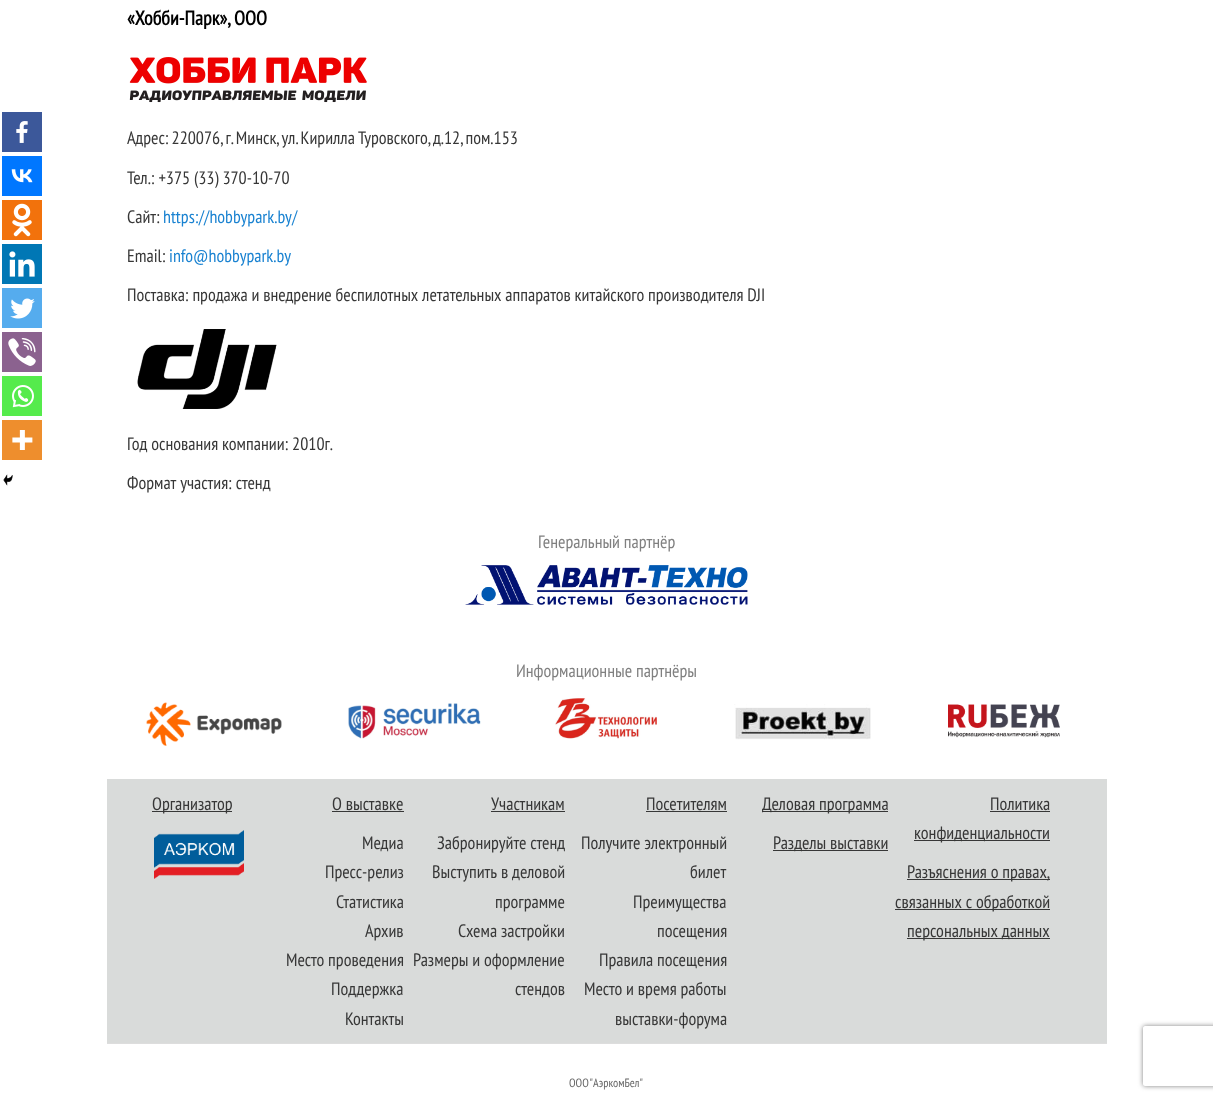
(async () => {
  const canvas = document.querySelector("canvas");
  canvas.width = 1213;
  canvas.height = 1100;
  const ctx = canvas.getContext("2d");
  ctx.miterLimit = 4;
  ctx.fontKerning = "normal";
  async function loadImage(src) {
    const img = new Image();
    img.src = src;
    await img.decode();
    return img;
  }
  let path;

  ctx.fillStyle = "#ffffff";
  ctx.fillRect(0, 0, 1213, 1100);
  ctx.drawImage(await loadImage("img/1.png"), 129, 57, 238, 46);
  ctx.fillStyle = "#3c589a";
  ctx.fillRect(2, 112, 40, 40);
  ctx.drawImage(await loadImage("img/2.png"), 16, 121, 12, 22);
  ctx.fillStyle = "#0077ff";
  ctx.fillRect(2, 156, 40, 40);
  ctx.drawImage(await loadImage("img/3.png"), 11, 169, 22, 14);
  ctx.fillStyle = "#f2720c";
  ctx.fillRect(2, 200, 40, 40);
  ctx.drawImage(await loadImage("img/4.png"), 12, 203, 20, 34);
  ctx.fillStyle = "#0077b5";
  ctx.fillRect(2, 244, 40, 40);
  ctx.drawImage(await loadImage("img/5.png"), 9, 251, 26, 26);
  ctx.fillStyle = "#55acee";
  ctx.fillRect(2, 288, 40, 40);
  ctx.drawImage(await loadImage("img/6.png"), 10, 298, 25, 21);
  ctx.fillStyle = "#8b628f";
  ctx.fillRect(2, 332, 40, 40);
  ctx.drawImage(await loadImage("img/7.png"), 8, 338, 28, 28);
  ctx.fillStyle = "#55eb4c";
  ctx.fillRect(2, 376, 40, 40);
  ctx.drawImage(await loadImage("img/8.png"), 12, 385, 22, 23);
  ctx.fillStyle = "#ee8e2d";
  ctx.fillRect(2, 420, 40, 40);
  ctx.drawImage(await loadImage("img/9.png"), 12, 430, 21, 20);
  ctx.drawImage(await loadImage("img/10.png"), 3, 474, 10, 12);
  ctx.drawImage(await loadImage("img/11.png"), 137, 329, 140, 80);
  ctx.drawImage(await loadImage("img/12.png"), 465, 565, 283, 40);
  ctx.drawImage(await loadImage("img/13.png"), 146, 702, 136, 44);
  ctx.drawImage(await loadImage("img/14.png"), 348, 703, 133, 36);
  ctx.drawImage(await loadImage("img/15.png"), 555, 698, 102, 41);
  ctx.drawImage(await loadImage("img/16.png"), 734, 704, 137, 36);
  ctx.drawImage(await loadImage("img/17.png"), 948, 704, 112, 34);
  ctx.fillStyle = "#d9dbda";
  ctx.fillRect(107, 779, 1000, 264);
  ctx.fillStyle = "#373737";
  ctx.fillRect(152, 811, 80, 1);
  ctx.drawImage(await loadImage("img/18.png"), 154, 830, 90, 49);
  for (const [x, y, w, h, color] of [
    [332, 811, 72, 1, "#373737"],
    [491, 811, 74, 1, "#373737"],
    [646, 811, 81, 1, "#373737"],
    [762, 811, 126, 1, "#373737"],
    [773, 850, 115, 1, "#373737"],
    [990, 811, 60, 1, "#373737"],
    [914, 840, 136, 1, "#373737"],
    [907, 879, 143, 1, "#373737"],
    [895, 909, 155, 1, "#373737"],
    [907, 938, 143, 1, "#373737"],
    [107, 1043, 1000, 1, "#dddddd"],
  ]) {
    ctx.fillStyle = color;
    ctx.fillRect(x, y, w, h);
  }
  ctx.save();
  path = new Path2D("M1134 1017H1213V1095H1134ZM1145 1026H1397C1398 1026 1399 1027 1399 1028V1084C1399 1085 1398 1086 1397 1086H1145C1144 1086 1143 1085 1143 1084V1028C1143 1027 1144 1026 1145 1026Z");
  ctx.clip(path, "evenodd");
  ctx.fillStyle = "#808080";
  ctx.filter = "blur(2.5px)";
  ctx.beginPath();
  ctx.roundRect(1143, 1026, 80, 60, 2);
  ctx.fill();
  ctx.filter = "none";
  ctx.restore();
  ctx.font = "bold 20px PT Sans Narrow";
  ctx.fillStyle = "#000000";
  ctx.fillText("«Хобби-Парк», ООО", 127, 25);
  ctx.wordSpacing = "-0.75px";
  ctx.font = "18px PT Sans Narrow";
  ctx.fillStyle = "#373737";
  ctx.fillText("Адрес: 220076, г. Минск, ул. Кирилла Туровского, д.12, пом.153", 127, 144);
  ctx.wordSpacing = "0px";
  ctx.fillText("Тел.: +375 (33) 370-10-70", 127, 184);
  ctx.fillText("Сайт:", 127, 223);
  ctx.fillStyle = "#1982d1";
  ctx.fillText("https://hobbypark.by/", 163, 223);
  ctx.fillStyle = "#373737";
  ctx.fillText("Email:", 127, 262);
  ctx.fillStyle = "#1982d1";
  ctx.fillText("info@hobbypark.by", 169, 262);
  ctx.fillStyle = "#373737";
  for (const [text, x, y] of [
    ["Поставка: продажа и внедрение беспилотных летательных аппаратов китайского производителя DJI", 127, 301],
    ["Год основания компании: 2010г.", 127, 450],
    ["Формат участия: стенд", 127, 489],
  ]) {
    ctx.fillText(text, x, y);
  }
  ctx.fillStyle = "#808080";
  ctx.fillText("Генеральный партнёр", 538, 548);
  ctx.fillText("Информационные партнёры", 516, 677);
  ctx.fillStyle = "#373737";
  for (const [text, x, y] of [
    ["Организатор", 152, 810],
    ["О выставке", 332, 810],
    ["Медиа", 362, 849],
    ["Пресс-релиз", 325, 878],
    ["Статистика", 336, 908],
    ["Архив", 365, 937],
    ["Место проведения", 286, 966],
    ["Поддержка", 331, 995],
    ["Контакты", 345, 1025],
    ["Участникам", 491, 810],
    ["Забронируйте стенд", 437, 849],
    ["Выступить в деловой", 432, 878],
    ["программе", 495, 908],
    ["Схема застройки", 458, 937],
    ["Размеры и оформление", 413, 966],
    ["стендов", 515, 995],
    ["Посетителям", 646, 810],
    ["Получите электронный", 581, 849],
    ["билет", 690, 878],
    ["Преимущества", 633, 908],
    ["посещения", 657, 937],
    ["Правила посещения", 599, 966],
    ["Место и время работы", 584, 995],
    ["выставки-форума", 615, 1025],
    ["Деловая программа", 762, 810],
    ["Разделы выставки", 773, 849],
    ["Политика", 990, 810],
    ["конфиденциальности", 914, 839],
    ["Разъяснения о правах,", 907, 878],
    ["связанных с обработкой", 895, 908],
    ["персональных данных", 907, 937],
  ]) {
    ctx.fillText(text, x, y);
  }
  ctx.wordSpacing = "-1px";
  ctx.font = "12px PT Sans Narrow";
  ctx.fillStyle = "#666666";
  ctx.fillText("ООО \"АэркомБел\"", 569, 1087);
})();
